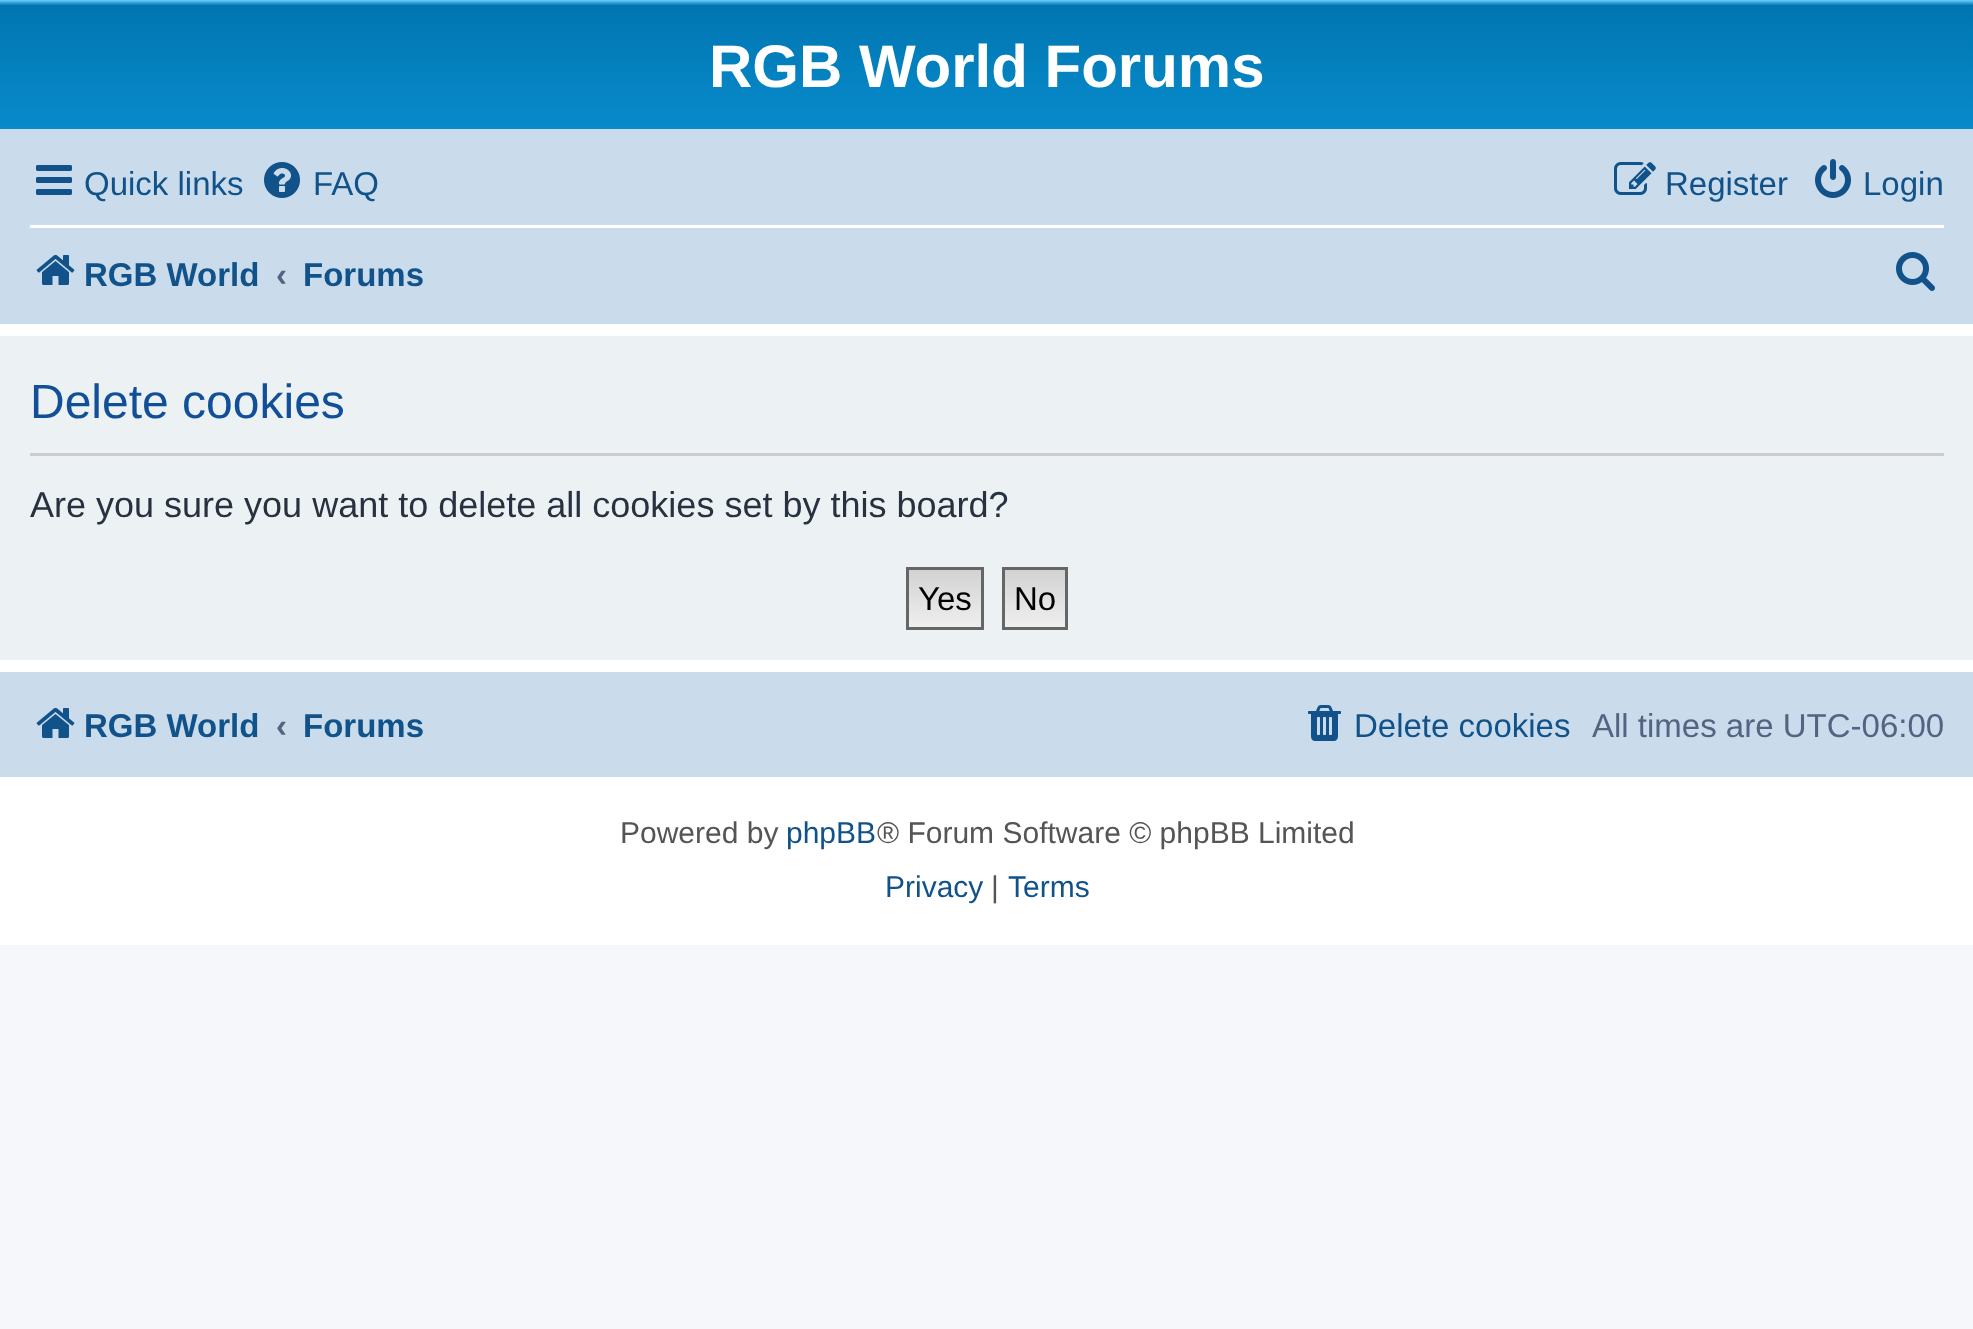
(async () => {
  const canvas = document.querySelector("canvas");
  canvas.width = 1973;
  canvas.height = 1329;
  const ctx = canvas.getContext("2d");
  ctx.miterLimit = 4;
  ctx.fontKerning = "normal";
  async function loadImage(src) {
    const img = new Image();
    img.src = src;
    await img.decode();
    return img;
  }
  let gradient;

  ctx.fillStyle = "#f5f7fa";
  ctx.fillRect(0, 0, 1973, 1329);
  ctx.fillStyle = "#ffffff";
  ctx.fillRect(0, 324, 1973, 621);
  gradient = ctx.createLinearGradient(987, 0, 987, 276);
  gradient.addColorStop(0, "#6aceff");
  gradient.addColorStop(0.02, "#0076b1");
  gradient.addColorStop(1, "#12a3eb");
  ctx.fillStyle = gradient;
  ctx.fillRect(0, 0, 1973, 129);
  ctx.fillStyle = "#cadceb";
  ctx.fillRect(0, 129, 1973, 195);
  ctx.drawImage(await loadImage("img/1.png"), 36, 165, 36, 30);
  ctx.drawImage(await loadImage("img/2.png"), 264, 162, 36, 36);
  ctx.drawImage(await loadImage("img/3.png"), 1614, 162, 42, 33);
  ctx.drawImage(await loadImage("img/4.png"), 1815, 159, 36, 39);
  ctx.fillStyle = "#ffffff";
  ctx.fillRect(30, 225, 1914, 3);
  ctx.drawImage(await loadImage("img/5.png"), 36, 254, 39, 31);
  ctx.drawImage(await loadImage("img/6.png"), 1896, 252, 39, 39);
  ctx.fillStyle = "#ecf1f3";
  ctx.fillRect(0, 336, 1973, 324);
  ctx.fillStyle = "#cccccc";
  ctx.fillRect(30, 453, 1914, 3);
  gradient = ctx.createLinearGradient(945, 570, 945, 627);
  gradient.addColorStop(0, "#d2d2d2");
  gradient.addColorStop(1, "#efefef");
  ctx.fillStyle = gradient;
  ctx.fillRect(909, 570, 72, 57);
  ctx.strokeStyle = "#666666";
  ctx.lineWidth = 3;
  ctx.strokeRect(907.5, 568.5, 75, 60);
  gradient = ctx.createLinearGradient(1035, 570, 1035, 627);
  gradient.addColorStop(0, "#d2d2d2");
  gradient.addColorStop(1, "#efefef");
  ctx.fillStyle = gradient;
  ctx.fillRect(1005, 570, 60, 57);
  ctx.strokeRect(1003.5, 568.5, 63, 60);
  ctx.fillStyle = "#cadceb";
  ctx.fillRect(0, 672, 1973, 105);
  ctx.drawImage(await loadImage("img/5.png"), 36, 707, 39, 31);
  ctx.drawImage(await loadImage("img/7.png"), 1308, 705, 33, 36);
  ctx.font = "bold 60px Liberation Sans";
  ctx.fillStyle = "#ffffff";
  ctx.fillText("RGB World Forums", 709, 87);
  ctx.font = "33px Liberation Sans";
  ctx.fillStyle = "#105289";
  for (const [text, x, y] of [
    ["Quick links", 84, 195],
    ["FAQ", 313, 195],
    ["Register", 1665, 195],
    ["Login", 1863, 195],
  ]) {
    ctx.fillText(text, x, y);
  }
  ctx.font = "bold 33px Liberation Sans";
  ctx.fillText("RGB World", 84, 286);
  ctx.fillStyle = "#536482";
  ctx.fillText("‹", 276, 286);
  ctx.fillStyle = "#105289";
  ctx.fillText("Forums", 303, 286);
  ctx.font = "48px Liberation Sans";
  ctx.fillStyle = "#115098";
  ctx.fillText("Delete cookies", 30, 418);
  ctx.font = "36px Liberation Sans";
  ctx.fillStyle = "#28313f";
  ctx.fillText("Are you sure you want to delete all cookies set by this board?", 30, 517);
  ctx.font = "33px Liberation Sans";
  ctx.fillStyle = "#000000";
  ctx.fillText("Yes", 918, 610);
  ctx.fillText("No", 1014, 610);
  ctx.font = "bold 33px Liberation Sans";
  ctx.fillStyle = "#105289";
  ctx.fillText("RGB World", 84, 737);
  ctx.fillStyle = "#536482";
  ctx.fillText("‹", 276, 737);
  ctx.fillStyle = "#105289";
  ctx.fillText("Forums", 303, 737);
  ctx.font = "33px Liberation Sans";
  ctx.fillText("Delete cookies", 1354, 737);
  ctx.fillStyle = "#536482";
  ctx.fillText("All times are UTC-06:00", 1592, 737);
  ctx.font = "30px Liberation Sans";
  ctx.fillStyle = "#555555";
  ctx.fillText("Powered by", 620, 843);
  ctx.fillStyle = "#105289";
  ctx.fillText("phpBB", 786, 843);
  ctx.fillStyle = "#555555";
  ctx.fillText("® Forum Software © phpBB Limited", 877, 843);
  ctx.fillStyle = "#105289";
  ctx.fillText("Privacy", 885, 897);
  ctx.fillStyle = "#555555";
  ctx.fillText("|", 991, 897);
  ctx.fillStyle = "#105289";
  ctx.fillText("Terms", 1008, 897);
})();
